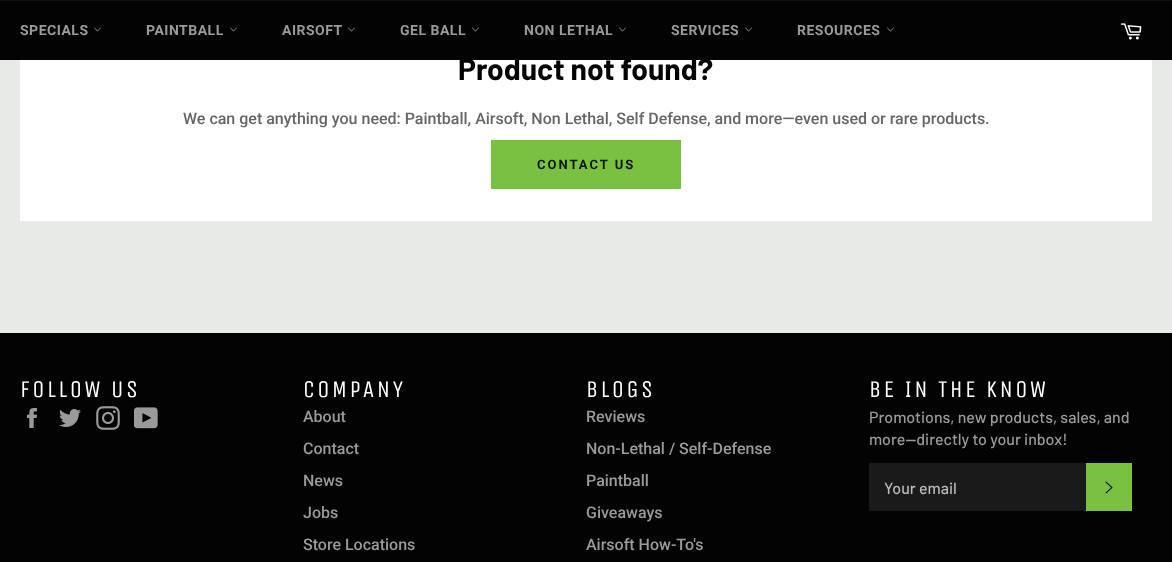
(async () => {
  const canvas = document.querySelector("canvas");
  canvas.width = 1172;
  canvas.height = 562;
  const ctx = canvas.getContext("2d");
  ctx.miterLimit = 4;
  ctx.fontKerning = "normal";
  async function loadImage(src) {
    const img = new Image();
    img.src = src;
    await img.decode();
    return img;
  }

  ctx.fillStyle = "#e8eae7";
  ctx.fillRect(0, 0, 1172, 562);
  ctx.fillStyle = "#030303";
  ctx.fillRect(0, 1, 1172, 59);
  ctx.fillStyle = "#101010";
  ctx.fillRect(0, 0, 1172, 1);
  ctx.drawImage(await loadImage("img/1.png"), 94, 27, 7, 5);
  ctx.drawImage(await loadImage("img/1.png"), 230, 27, 7, 5);
  ctx.drawImage(await loadImage("img/1.png"), 348, 27, 7, 5);
  ctx.drawImage(await loadImage("img/1.png"), 472, 27, 7, 5);
  ctx.drawImage(await loadImage("img/1.png"), 619, 27, 7, 5);
  ctx.drawImage(await loadImage("img/1.png"), 745, 27, 7, 5);
  ctx.drawImage(await loadImage("img/1.png"), 887, 27, 7, 5);
  ctx.drawImage(await loadImage("img/2.png"), 1120, 23, 22, 17);
  for (const [x, y, w, h, color] of [
    [20, 60, 1132, 161, "#ffffff"],
    [491, 140, 190, 49, "#7ac142"],
    [0, 333, 1172, 229, "#030303"],
  ]) {
    ctx.fillStyle = color;
    ctx.fillRect(x, y, w, h);
  }
  ctx.drawImage(await loadImage("img/3.png"), 27, 408, 10, 20);
  ctx.drawImage(await loadImage("img/4.png"), 59, 409, 22, 18);
  ctx.drawImage(await loadImage("img/5.png"), 96, 406, 24, 24);
  ctx.drawImage(await loadImage("img/6.png"), 134, 407, 24, 22);
  ctx.fillStyle = "#1a1a1a";
  ctx.fillRect(869, 463, 217, 48);
  ctx.fillStyle = "#7ac142";
  ctx.fillRect(1086, 463, 46, 48);
  ctx.drawImage(await loadImage("img/7.png"), 1105, 481, 8, 13);
  ctx.letterSpacing = "0.5px";
  ctx.font = "bold 14px Roboto";
  ctx.fillStyle = "#9a9a9a";
  for (const [text, x, y] of [
    ["SPECIALS", 20, 35],
    ["PAINTBALL", 146, 35],
    ["AIRSOFT", 282, 35],
    ["GEL BALL", 400, 35],
    ["NON LETHAL", 524, 35],
    ["SERVICES", 671, 35],
    ["RESOURCES", 797, 35],
  ]) {
    ctx.fillText(text, x, y);
  }
  ctx.letterSpacing = "0px";
  ctx.font = "bold 30px Barlow";
  ctx.fillStyle = "#030303";
  ctx.fillText("Product not found?", 458, 80);
  ctx.font = "500 16px Roboto";
  ctx.fillStyle = "#666666";
  ctx.fillText("We can get anything you need: Paintball, Airsoft, Non Lethal, Self Defense, and more—even used or rare products.", 183, 124);
  ctx.letterSpacing = "2px";
  ctx.font = "bold 13px Roboto";
  ctx.fillStyle = "#0d1507";
  ctx.fillText("CONTACT US", 537, 169);
  ctx.letterSpacing = "2.4px";
  ctx.font = "24px Unica One";
  ctx.fillStyle = "#ffffff";
  ctx.fillText("FOLLOW US", 20, 397);
  ctx.fillText("COMPANY", 303, 397);
  ctx.letterSpacing = "0px";
  ctx.font = "500 16px Roboto";
  ctx.fillStyle = "#9a9a9a";
  for (const [text, x, y] of [
    ["About", 303, 422],
    ["Contact", 303, 454],
    ["News", 303, 486],
    ["Jobs", 303, 518],
    ["Store Locations", 303, 550],
  ]) {
    ctx.fillText(text, x, y);
  }
  ctx.letterSpacing = "2.4px";
  ctx.font = "24px Unica One";
  ctx.fillStyle = "#ffffff";
  ctx.fillText("BLOGS", 586, 397);
  ctx.letterSpacing = "0px";
  ctx.font = "500 16px Roboto";
  ctx.fillStyle = "#9a9a9a";
  for (const [text, x, y] of [
    ["Reviews", 586, 422],
    ["Non-Lethal / Self-Defense", 586, 454],
    ["Paintball", 586, 486],
    ["Giveaways", 586, 518],
    ["Airsoft How-To's", 586, 550],
  ]) {
    ctx.fillText(text, x, y);
  }
  ctx.letterSpacing = "2.4px";
  ctx.font = "24px Unica One";
  ctx.fillStyle = "#ffffff";
  ctx.fillText("BE IN THE KNOW", 869, 397);
  ctx.letterSpacing = "0px";
  ctx.font = "500 16px Barlow";
  ctx.fillStyle = "#9a9a9a";
  ctx.fillText("Promotions, new products, sales, and", 869, 423);
  ctx.fillText("more—directly to your inbox!", 869, 445);
  ctx.fillStyle = "#bababa";
  ctx.fillText("Your email", 884, 494);
})();
